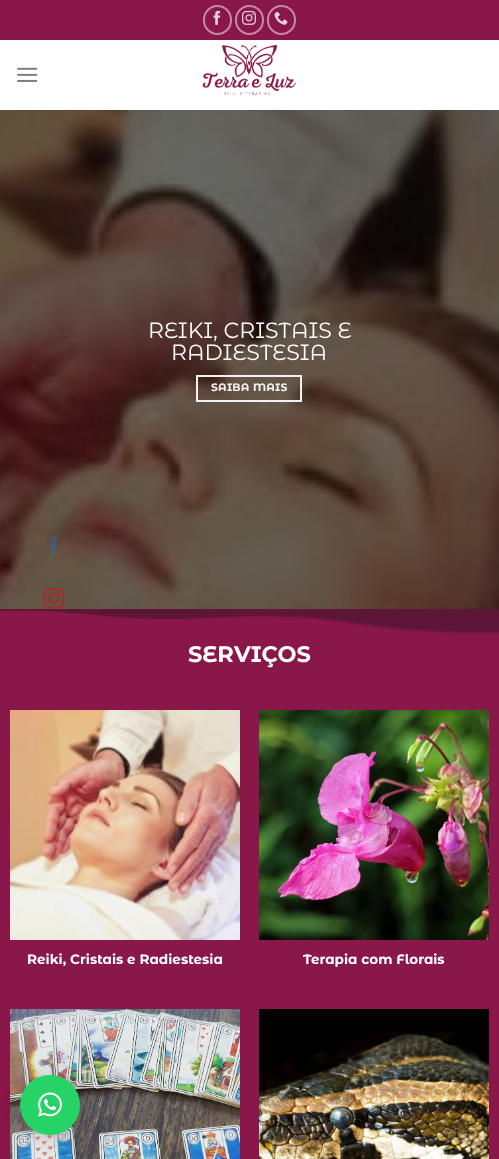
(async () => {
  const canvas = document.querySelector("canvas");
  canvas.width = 499;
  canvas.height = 1159;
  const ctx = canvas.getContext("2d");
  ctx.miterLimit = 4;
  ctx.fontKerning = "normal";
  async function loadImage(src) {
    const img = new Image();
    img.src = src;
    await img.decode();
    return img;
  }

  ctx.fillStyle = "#ffffff";
  ctx.fillRect(0, 0, 499, 1159);
  ctx.fillStyle = "#8a1749";
  ctx.fillRect(0, 0, 499, 40);
  ctx.beginPath();
  ctx.roundRect(204, 6, 27, 28, 13.5);
  ctx.strokeStyle = "#c58ba4";
  ctx.lineWidth = 2;
  ctx.stroke();
  ctx.drawImage(await loadImage("img/1.png"), 213, 10, 7, 15);
  ctx.beginPath();
  ctx.roundRect(236, 6, 27, 28, 13.5);
  ctx.stroke();
  ctx.drawImage(await loadImage("img/2.png"), 242, 10, 14, 15);
  ctx.beginPath();
  ctx.roundRect(268, 6, 27, 28, 13.5);
  ctx.stroke();
  ctx.drawImage(await loadImage("img/3.png"), 274, 11, 14, 14);
  ctx.drawImage(await loadImage("img/4.png"), 17, 67, 21, 15);
  ctx.drawImage(await loadImage("img/5.png"), 202, 44, 94, 52);
  ctx.drawImage(await loadImage("img/6.png"), 0, 110, 499, 499);
  ctx.fillStyle = "rgba(53, 53, 53, 0.1)";
  ctx.fillRect(15, 110, 469, 1);
  ctx.strokeStyle = "#f1f1f1";
  ctx.strokeRect(197, 376, 104, 25);
  ctx.fillStyle = "#8a1749";
  ctx.fillRect(0, 610, 499, 549);
  ctx.drawImage(await loadImage("img/7.png"), 0, 609, 499, 26);
  ctx.drawImage(await loadImage("img/8.png"), 10, 710, 230, 230);
  ctx.drawImage(await loadImage("img/9.png"), 259, 710, 230, 230);
  ctx.drawImage(await loadImage("img/10.png"), 10, 1009, 230, 150);
  ctx.drawImage(await loadImage("img/11.png"), 259, 1009, 230, 150);
  ctx.drawImage(await loadImage("img/12.png"), 49, 535, 10, 22);
  ctx.drawImage(await loadImage("img/13.png"), 43, 588, 22, 21);
  ctx.fillStyle = "rgba(0, 0, 0, 0.16)";
  ctx.filter = "blur(16px)";
  ctx.beginPath();
  ctx.roundRect(20, 1077, 60, 60, 30);
  ctx.fill();
  ctx.filter = "none";
  ctx.fillStyle = "rgba(0, 0, 0, 0.06)";
  ctx.filter = "blur(3px)";
  ctx.beginPath();
  ctx.roundRect(20, 1076, 60, 60, 30);
  ctx.fill();
  ctx.filter = "none";
  ctx.fillStyle = "#25d366";
  ctx.beginPath();
  ctx.arc(50, 1105, 30, 0, Math.PI * 2);
  ctx.fill();
  ctx.drawImage(await loadImage("img/14.png"), 38, 1092, 24, 25);
  ctx.font = "22px Montserrat Alternates";
  ctx.fillStyle = "#ffffff";
  ctx.fillText("REIKI, CRISTAIS E", 148, 338);
  ctx.fillText("RADIESTESIA", 171, 360);
  ctx.letterSpacing = "0.25px";
  ctx.font = "bold 10.75px Montserrat Alternates";
  ctx.fillStyle = "#f1f1f1";
  ctx.fillText("SAIBA MAIS", 211, 391);
  ctx.letterSpacing = "0px";
  ctx.font = "bold 22.5px Montserrat Alternates";
  ctx.fillStyle = "#ffffff";
  ctx.fillText("SERVIÇOS", 188, 662);
  ctx.font = "bold 13.6px Montserrat Alternates";
  ctx.fillText("Reiki, Cristais e Radiestesia", 27, 964);
  ctx.fillText("Terapia com Florais", 303, 964);
})();
